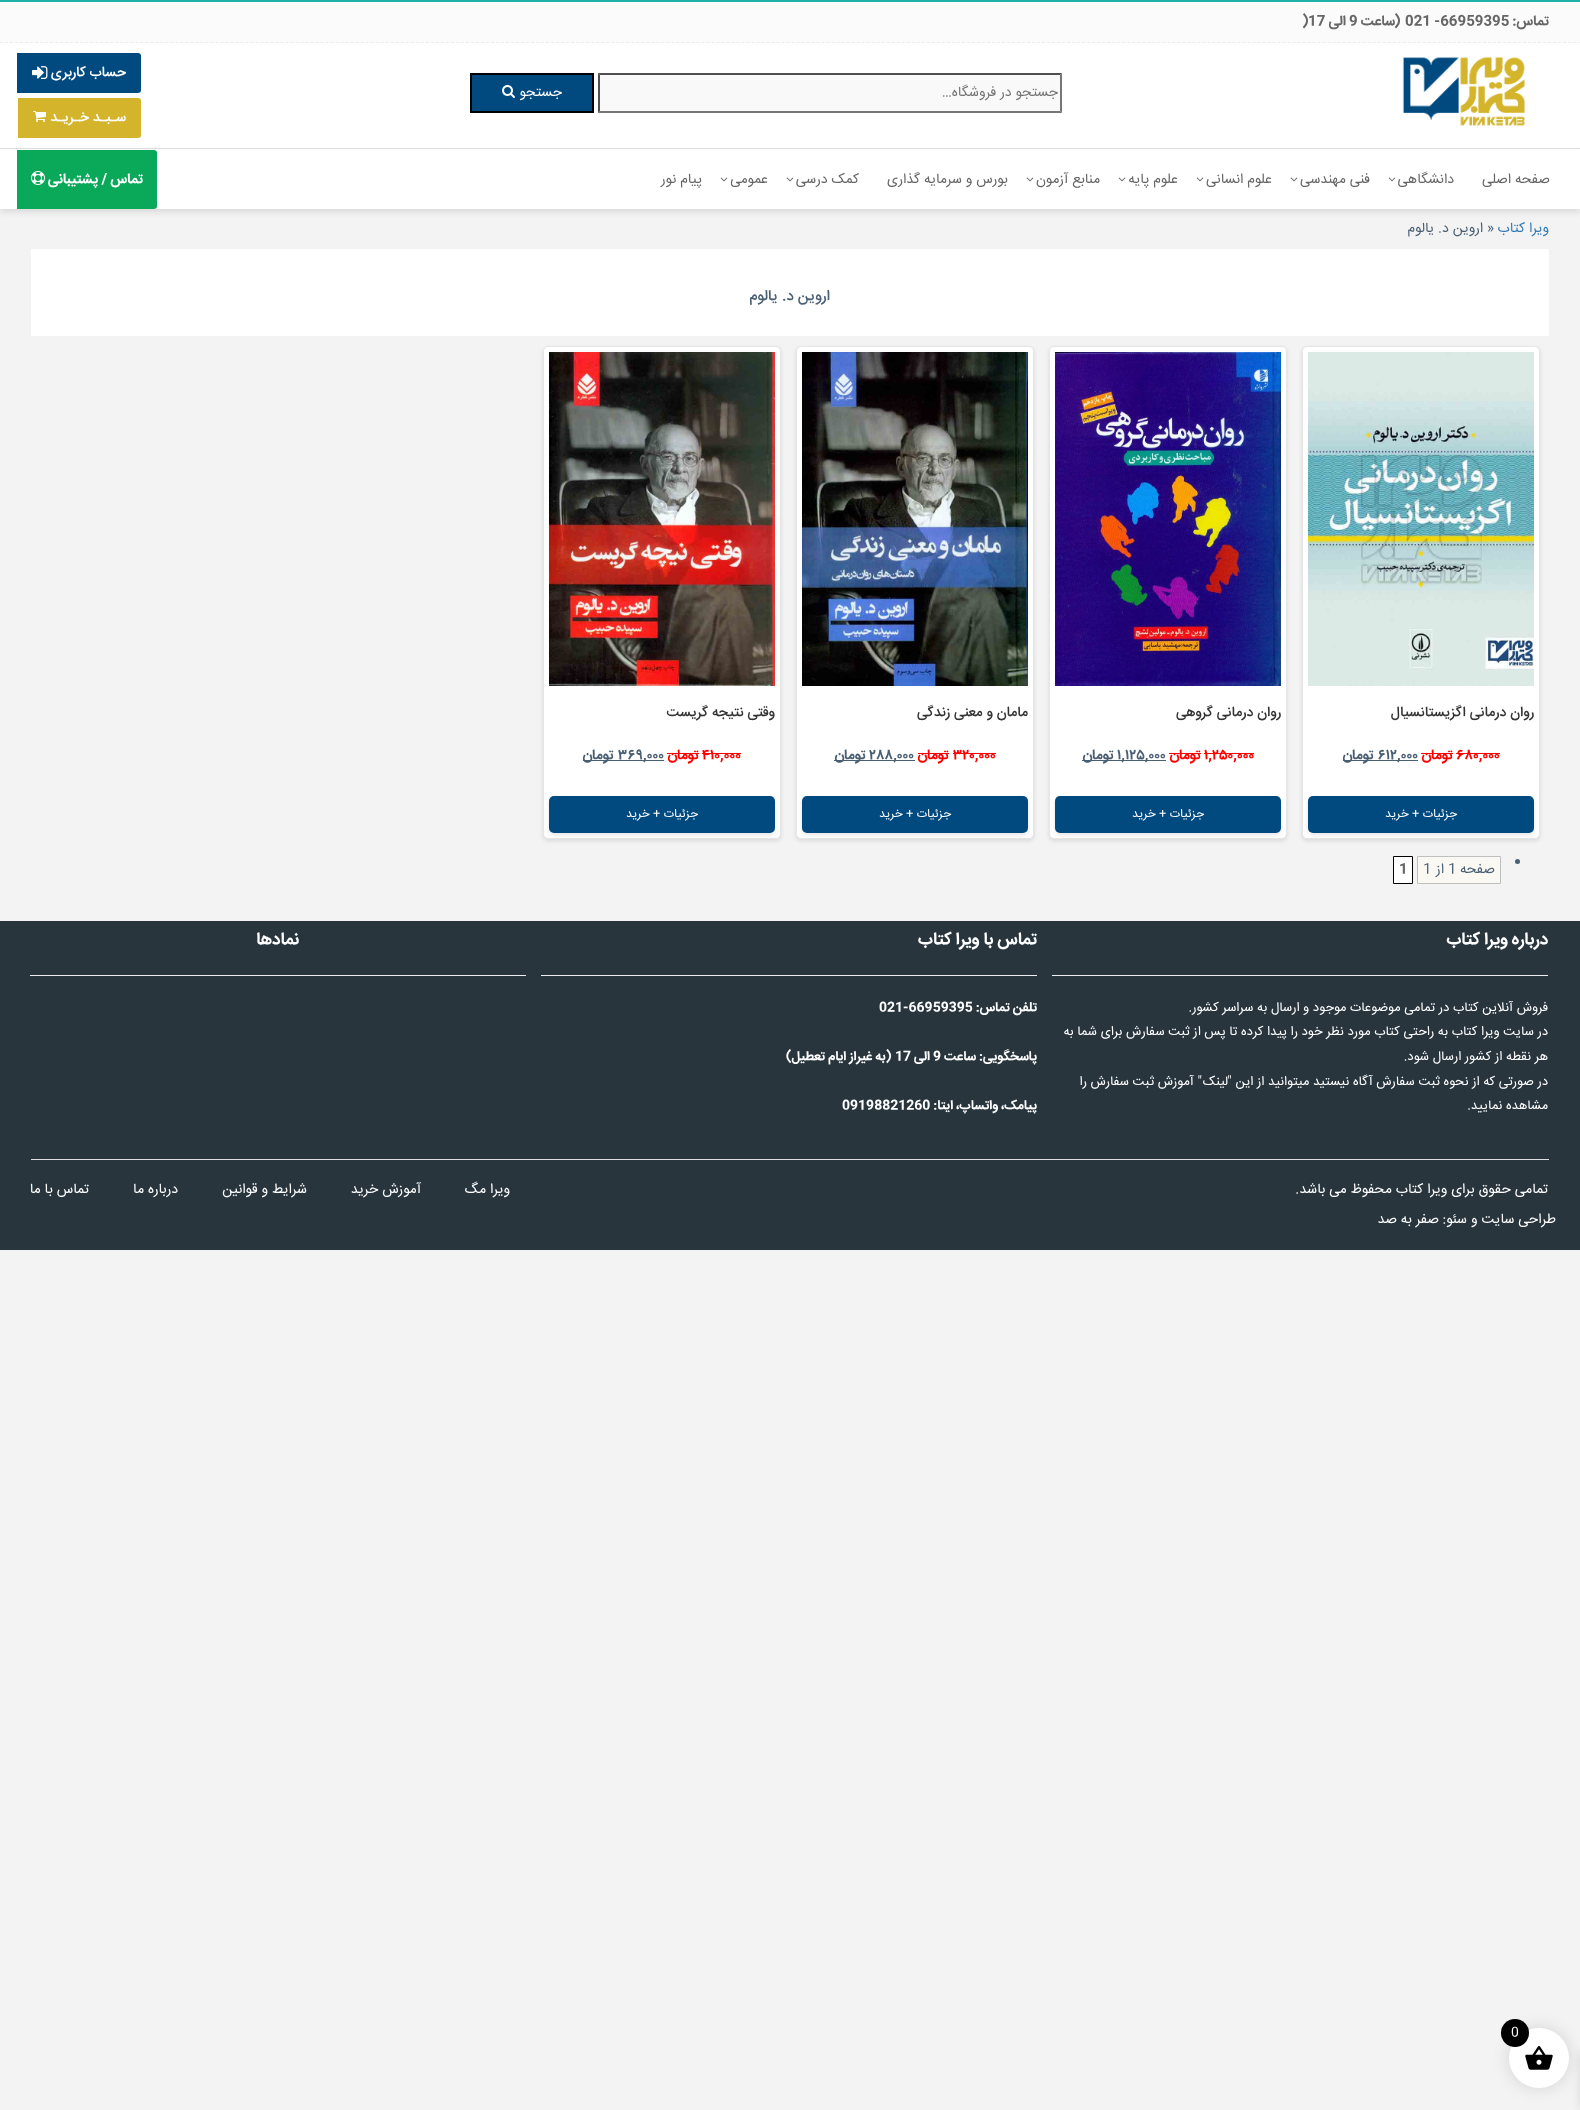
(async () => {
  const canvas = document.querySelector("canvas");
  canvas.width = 1580;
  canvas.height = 2110;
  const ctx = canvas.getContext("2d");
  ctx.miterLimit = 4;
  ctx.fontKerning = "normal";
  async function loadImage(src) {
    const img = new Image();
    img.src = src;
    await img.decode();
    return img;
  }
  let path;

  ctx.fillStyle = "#f3f3f3";
  ctx.fillRect(0, 0, 1580, 2110);
  for (const [x, y, w, h, color] of [
    [0, 43, 1580, 107, "#ffffff"],
    [0, 0, 1580, 2, "#20b2aa"],
    [0, 2, 1580, 41, "#fbfbfb"],
  ]) {
    ctx.fillStyle = color;
    ctx.fillRect(x, y, w, h);
  }
  path = new Path2D("M0 42.5H1580");
  ctx.strokeStyle = "#ededed";
  ctx.setLineDash([3, 2.01]);
  ctx.stroke(path);
  ctx.fillStyle = "#dedede";
  ctx.fillRect(0, 148, 1580, 1);
  ctx.drawImage(await loadImage("img/1.png"), 1402, 56, 124, 70);
  ctx.fillStyle = "#f9f9f9";
  ctx.fillRect(598, 73, 464, 40);
  ctx.fillStyle = "#4f4f4f";
  path = new Path2D("M598 73H1062L1060 75H600Z");
  ctx.fill(path);
  ctx.fillStyle = "#767676";
  path = new Path2D("M1062 73V113L1060 111V75Z");
  ctx.fill(path);
  path = new Path2D("M1062 113H598L600 111H1060Z");
  ctx.fill(path);
  ctx.fillStyle = "#4f4f4f";
  path = new Path2D("M598 113V73L600 75V111Z");
  ctx.fill(path);
  ctx.fillStyle = "#004a80";
  ctx.beginPath();
  ctx.rect(471, 74, 122, 38);
  ctx.fill();
  ctx.strokeStyle = "#000000";
  ctx.lineWidth = 2;
  ctx.setLineDash([]);
  ctx.stroke();
  ctx.drawImage(await loadImage("img/2.png"), 502, 85, 13, 13);
  ctx.beginPath();
  ctx.roundRect(16, 53, 125, 40, [0, 3, 3, 0]);
  ctx.fill();
  ctx.fillStyle = "#ffffff";
  ctx.fillRect(16, 53, 1, 40);
  ctx.drawImage(await loadImage("img/3.png"), 32, 66, 16, 13);
  ctx.fillStyle = "#d3b42b";
  ctx.beginPath();
  ctx.roundRect(17, 98, 124, 40, [0, 3, 3, 0]);
  ctx.fill();
  ctx.fillStyle = "#ffffff";
  ctx.fillRect(17, 98, 1, 40);
  ctx.drawImage(await loadImage("img/4.png"), 33, 111, 13, 11);
  ctx.fillStyle = "rgba(0, 0, 0, 0.1)";
  ctx.filter = "blur(3px)";
  ctx.beginPath();
  ctx.rect(0, 153, 1580, 59);
  ctx.fill();
  ctx.filter = "none";
  ctx.fillStyle = "#ffffff";
  ctx.fillRect(0, 150, 1580, 59);
  ctx.drawImage(await loadImage("img/5.png"), 1388, 177, 8, 5);
  ctx.drawImage(await loadImage("img/5.png"), 1290, 177, 8, 5);
  ctx.drawImage(await loadImage("img/5.png"), 1196, 177, 8, 5);
  ctx.drawImage(await loadImage("img/5.png"), 1118, 177, 8, 5);
  ctx.drawImage(await loadImage("img/5.png"), 1026, 177, 8, 5);
  ctx.drawImage(await loadImage("img/5.png"), 786, 177, 8, 5);
  ctx.drawImage(await loadImage("img/5.png"), 720, 177, 8, 5);
  ctx.fillStyle = "#0aa859";
  ctx.beginPath();
  ctx.roundRect(16, 150, 141, 59, [0, 3, 3, 0]);
  ctx.fill();
  ctx.fillStyle = "#ffffff";
  ctx.fillRect(16, 150, 1, 59);
  ctx.drawImage(await loadImage("img/6.png"), 31, 171, 14, 14);
  ctx.fillRect(31, 249, 1518, 87);
  ctx.fillStyle = "rgba(0, 0, 0, 0.1)";
  ctx.filter = "blur(2px)";
  ctx.beginPath();
  ctx.roundRect(1302, 348, 238, 493, 5);
  ctx.fill();
  ctx.filter = "none";
  ctx.fillStyle = "#ffffff";
  ctx.beginPath();
  ctx.roundRect(1302.5, 346.5, 237, 492, 4.5);
  ctx.fill();
  ctx.strokeStyle = "#e6e6e6";
  ctx.lineWidth = 1;
  ctx.stroke();
  ctx.drawImage(await loadImage("img/7.png"), 1308, 352, 226, 334);
  for (const [x, y, w, h, color] of [
    [1456, 753, 44, 1, "#ff0000"],
    [1421, 753, 32, 1, "#ff0000"],
    [1343, 760, 75, 1, "#4a5f73"],
  ]) {
    ctx.fillStyle = color;
    ctx.fillRect(x, y, w, h);
  }
  ctx.fillStyle = "rgba(0, 0, 0, 0.1)";
  ctx.filter = "blur(2px)";
  ctx.beginPath();
  ctx.roundRect(1308, 798, 226, 37, 5);
  ctx.fill();
  ctx.filter = "none";
  ctx.fillStyle = "#004a80";
  ctx.beginPath();
  ctx.roundRect(1308, 796, 226, 37, 5);
  ctx.fill();
  ctx.fillStyle = "rgba(0, 0, 0, 0.1)";
  ctx.filter = "blur(2px)";
  ctx.beginPath();
  ctx.roundRect(1049, 348, 238, 493, 5);
  ctx.fill();
  ctx.filter = "none";
  ctx.fillStyle = "#ffffff";
  ctx.beginPath();
  ctx.roundRect(1049.5, 346.5, 237, 492, 4.5);
  ctx.fill();
  ctx.stroke();
  ctx.drawImage(await loadImage("img/8.png"), 1055, 352, 226, 334);
  for (const [x, y, w, h, color] of [
    [1204, 753, 50, 1, "#ff0000"],
    [1169, 753, 32, 1, "#ff0000"],
    [1082, 760, 84, 1, "#4a5f73"],
  ]) {
    ctx.fillStyle = color;
    ctx.fillRect(x, y, w, h);
  }
  ctx.fillStyle = "rgba(0, 0, 0, 0.1)";
  ctx.filter = "blur(2px)";
  ctx.beginPath();
  ctx.roundRect(1055, 798, 226, 37, 5);
  ctx.fill();
  ctx.filter = "none";
  ctx.fillStyle = "#004a80";
  ctx.beginPath();
  ctx.roundRect(1055, 796, 226, 37, 5);
  ctx.fill();
  ctx.fillStyle = "rgba(0, 0, 0, 0.1)";
  ctx.filter = "blur(2px)";
  ctx.beginPath();
  ctx.roundRect(796, 348, 238, 493, 5);
  ctx.fill();
  ctx.filter = "none";
  ctx.fillStyle = "#ffffff";
  ctx.beginPath();
  ctx.roundRect(796.5, 346.5, 237, 492, 4.5);
  ctx.fill();
  ctx.stroke();
  ctx.drawImage(await loadImage("img/9.png"), 802, 352, 226, 334);
  for (const [x, y, w, h, color] of [
    [953, 753, 43, 1, "#ff0000"],
    [918, 753, 31, 1, "#ff0000"],
    [834, 760, 81, 1, "#4a5f73"],
  ]) {
    ctx.fillStyle = color;
    ctx.fillRect(x, y, w, h);
  }
  ctx.fillStyle = "rgba(0, 0, 0, 0.1)";
  ctx.filter = "blur(2px)";
  ctx.beginPath();
  ctx.roundRect(802, 798, 226, 37, 5);
  ctx.fill();
  ctx.filter = "none";
  ctx.fillStyle = "#004a80";
  ctx.beginPath();
  ctx.roundRect(802, 796, 226, 37, 5);
  ctx.fill();
  ctx.fillStyle = "rgba(0, 0, 0, 0.1)";
  ctx.filter = "blur(2px)";
  ctx.beginPath();
  ctx.roundRect(543, 348, 238, 493, 5);
  ctx.fill();
  ctx.filter = "none";
  ctx.fillStyle = "#ffffff";
  ctx.beginPath();
  ctx.roundRect(543.5, 346.5, 237, 492, 4.5);
  ctx.fill();
  ctx.stroke();
  ctx.drawImage(await loadImage("img/10.png"), 549, 352, 226, 334);
  for (const [x, y, w, h, color] of [
    [702, 753, 39, 1, "#ff0000"],
    [667, 753, 32, 1, "#ff0000"],
    [583, 760, 81, 1, "#4a5f73"],
  ]) {
    ctx.fillStyle = color;
    ctx.fillRect(x, y, w, h);
  }
  ctx.fillStyle = "rgba(0, 0, 0, 0.1)";
  ctx.filter = "blur(2px)";
  ctx.beginPath();
  ctx.roundRect(549, 798, 226, 37, 5);
  ctx.fill();
  ctx.filter = "none";
  ctx.fillStyle = "#004a80";
  ctx.beginPath();
  ctx.roundRect(549, 796, 226, 37, 5);
  ctx.fill();
  ctx.fillStyle = "#4a5f73";
  ctx.beginPath();
  ctx.arc(1517.5, 861.5, 2.5, 0, Math.PI * 2);
  ctx.fill();
  ctx.fillStyle = "#f9f8f2";
  ctx.beginPath();
  ctx.rect(1417.5, 856.5, 83, 27);
  ctx.fill();
  ctx.strokeStyle = "#bfbfbf";
  ctx.stroke();
  ctx.fillStyle = "#ffffff";
  ctx.beginPath();
  ctx.rect(1393.5, 856.5, 19, 27);
  ctx.fill();
  ctx.strokeStyle = "#000000";
  ctx.stroke();
  for (const [x, y, w, h, color] of [
    [0, 921, 1580, 329, "#28353d"],
    [1052, 975, 496, 1, "#eeeeee"],
    [541, 975, 496, 1, "#eeeeee"],
    [30, 975, 496, 1, "#eeeeee"],
    [31, 1159, 1518, 1, "#dedede"],
  ]) {
    ctx.fillStyle = color;
    ctx.fillRect(x, y, w, h);
  }
  ctx.fillStyle = "rgba(0, 0, 0, 0.1)";
  ctx.filter = "blur(7.5px)";
  ctx.beginPath();
  ctx.roundRect(1507, 2026, 64, 64, 32);
  ctx.fill();
  ctx.filter = "none";
  ctx.filter = "blur(5px)";
  ctx.beginPath();
  ctx.rect(1580, 2053, 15, 56);
  ctx.fill();
  ctx.filter = "none";
  ctx.fillStyle = "#ffffff";
  ctx.beginPath();
  ctx.arc(1539, 2058, 30, 0, Math.PI * 2);
  ctx.fill();
  ctx.drawImage(await loadImage("img/11.png"), 1525, 2046, 28, 24);
  ctx.fillStyle = "#000000";
  ctx.beginPath();
  ctx.arc(1515, 2033, 14, 0, Math.PI * 2);
  ctx.fill();
  ctx.direction = "rtl";
  ctx.font = "bold 14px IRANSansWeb";
  ctx.fillStyle = "#666666";
  ctx.fillText("تماس:", 1549, 25);
  ctx.direction = "ltr";
  ctx.fillText("021 -66959395", 1405, 25);
  ctx.direction = "rtl";
  ctx.fillText("(ساعت", 1401, 25);
  ctx.direction = "ltr";
  ctx.fillText("9", 1349, 25);
  ctx.direction = "rtl";
  ctx.fillText("الی", 1346, 25);
  ctx.direction = "ltr";
  ctx.fillText("17", 1308, 25);
  ctx.fillText(")", 1302, 25);
  ctx.direction = "rtl";
  ctx.font = "14px IRANSansWeb";
  ctx.fillStyle = "#757575";
  ctx.fillText("جستجو در فروشگاه…", 1058, 96);
  ctx.fillStyle = "#ffffff";
  ctx.fillText("جستجو", 562, 96);
  ctx.font = "500 14px IRANSansWeb";
  ctx.fillText("حساب کاربری", 126, 76);
  ctx.fillText("سـبـد خـریـد", 126, 121);
  ctx.font = "14px IRANSansWeb";
  ctx.fillStyle = "#666666";
  for (const [text, x, y] of [
    ["صفحه اصلی", 1550, 183],
    ["دانشگاهی", 1454, 183],
    ["فنی مهندسی", 1370, 183],
    ["علوم انسانی", 1272, 183],
    ["علوم پایه", 1178, 183],
    ["منابع آزمون", 1100, 183],
    ["بورس و سرمایه گذاری", 1008, 183],
    ["کمک درسی", 859, 183],
    ["عمومی", 768, 183],
    ["پیام نور", 702, 183],
  ]) {
    ctx.fillText(text, x, y);
  }
  ctx.font = "bold 14px IRANSansWeb";
  ctx.fillStyle = "#ffffff";
  ctx.fillText("تماس / پشتیبانی", 143, 183);
  ctx.font = "14px IRANSansWeb";
  ctx.fillStyle = "#337ab7";
  ctx.fillText("ویرا کتاب", 1549, 232);
  ctx.direction = "ltr";
  ctx.fillStyle = "#4a5f73";
  ctx.fillText("»", 1487, 232);
  ctx.direction = "rtl";
  ctx.fillText("اروین د. یالوم", 1483, 232);
  ctx.font = "500 15px IRANSansWeb";
  ctx.fillText("اروین د. یالوم", 830, 300);
  ctx.font = "500 14px IRANSansWeb";
  ctx.fillStyle = "#333333";
  ctx.fillText("روان درمانی اگزیستانسیال", 1534, 716);
  ctx.direction = "ltr";
  ctx.font = "bold 14px IRANSansWeb";
  ctx.fillStyle = "#ff0000";
  ctx.fillText("۶۸۰,۰۰۰", 1456, 759);
  ctx.direction = "rtl";
  ctx.fillText("تومان", 1453, 759);
  ctx.direction = "ltr";
  ctx.fillStyle = "#4a5f73";
  ctx.fillText("۶۱۲,۰۰۰", 1378, 759);
  ctx.direction = "rtl";
  ctx.fillText("تومان", 1374, 759);
  ctx.font = "12px IRANSansWeb";
  ctx.fillStyle = "#ffffff";
  ctx.fillText("جزئیات + خرید", 1457, 817);
  ctx.font = "500 14px IRANSansWeb";
  ctx.fillStyle = "#333333";
  ctx.fillText("روان درمانی گروهی", 1281, 716);
  ctx.direction = "ltr";
  ctx.font = "bold 14px IRANSansWeb";
  ctx.fillStyle = "#ff0000";
  ctx.fillText("۱,۲۵۰,۰۰۰", 1204, 759);
  ctx.direction = "rtl";
  ctx.fillText("تومان", 1201, 759);
  ctx.direction = "ltr";
  ctx.fillStyle = "#4a5f73";
  ctx.fillText("۱,۱۲۵,۰۰۰", 1117, 759);
  ctx.direction = "rtl";
  ctx.fillText("تومان", 1114, 759);
  ctx.font = "12px IRANSansWeb";
  ctx.fillStyle = "#ffffff";
  ctx.fillText("جزئیات + خرید", 1204, 817);
  ctx.font = "500 14px IRANSansWeb";
  ctx.fillStyle = "#333333";
  ctx.fillText("مامان و معنی زندگی", 1028, 716);
  ctx.direction = "ltr";
  ctx.font = "bold 14px IRANSansWeb";
  ctx.fillStyle = "#ff0000";
  ctx.fillText("۳۲۰,۰۰۰", 953, 759);
  ctx.direction = "rtl";
  ctx.fillText("تومان", 949, 759);
  ctx.direction = "ltr";
  ctx.fillStyle = "#4a5f73";
  ctx.fillText("۲۸۸,۰۰۰", 869, 759);
  ctx.direction = "rtl";
  ctx.fillText("تومان", 866, 759);
  ctx.font = "12px IRANSansWeb";
  ctx.fillStyle = "#ffffff";
  ctx.fillText("جزئیات + خرید", 951, 817);
  ctx.font = "500 14px IRANSansWeb";
  ctx.fillStyle = "#333333";
  ctx.fillText("وقتی نتیجه گریست", 775, 716);
  ctx.direction = "ltr";
  ctx.font = "bold 14px IRANSansWeb";
  ctx.fillStyle = "#ff0000";
  ctx.fillText("۴۱۰,۰۰۰", 702, 759);
  ctx.direction = "rtl";
  ctx.fillText("تومان", 699, 759);
  ctx.direction = "ltr";
  ctx.fillStyle = "#4a5f73";
  ctx.fillText("۳۶۹,۰۰۰", 618, 759);
  ctx.direction = "rtl";
  ctx.fillText("تومان", 614, 759);
  ctx.font = "12px IRANSansWeb";
  ctx.fillStyle = "#ffffff";
  ctx.fillText("جزئیات + خرید", 698, 817);
  ctx.font = "14px IRANSansWeb";
  ctx.fillStyle = "#4a5f73";
  ctx.fillText("صفحه", 1495, 873);
  ctx.direction = "ltr";
  ctx.fillText("1", 1448, 873);
  ctx.direction = "rtl";
  ctx.fillText("از", 1444, 873);
  ctx.direction = "ltr";
  ctx.fillText("1", 1423, 873);
  ctx.font = "bold 14px IRANSansWeb";
  ctx.fillStyle = "#666666";
  ctx.fillText("1", 1399, 873);
  ctx.direction = "rtl";
  ctx.font = "bold 17px IRANSansWeb";
  ctx.fillStyle = "#ffffff";
  ctx.fillText("درباره ویرا کتاب", 1548, 944);
  ctx.font = "13px IRANSansWeb";
  for (const [text, x, y] of [
    ["فروش آنلاین کتاب در تمامی موضوعات موجود و ارسال به سراسر کشور.", 1548, 1011],
    ["در سایت ویرا کتاب به راحتی کتاب مورد نظر خود را پیدا کرده تا پس از ثبت سفارش برای شما به", 1548, 1035],
    ["هر نقطه از کشور ارسال شود.", 1548, 1060],
    ["در صورتی که از نحوه ثبت سفارش آگاه نیستید میتوانید از این \"", 1548, 1085],
    ["لینک", 1228, 1085],
    ["\" آموزش ثبت سفارش را", 1202, 1085],
    ["مشاهده نمایید.", 1548, 1109],
  ]) {
    ctx.fillText(text, x, y);
  }
  ctx.font = "bold 17px IRANSansWeb";
  ctx.fillText("تماس با ویرا کتاب", 1037, 944);
  ctx.font = "bold 13px IRANSansWeb";
  ctx.fillText("تلفن تماس:", 1037, 1011);
  ctx.direction = "ltr";
  ctx.fillText("021-66959395", 879, 1011);
  ctx.direction = "rtl";
  ctx.fillText("پاسخگویی: ساعت", 1037, 1060);
  ctx.direction = "ltr";
  ctx.fillText("9", 933, 1060);
  ctx.direction = "rtl";
  ctx.fillText("الی", 930, 1060);
  ctx.direction = "ltr";
  ctx.fillText("17", 895, 1060);
  ctx.direction = "rtl";
  ctx.fillText("(به غیراز ایام تعطیل)", 892, 1060);
  ctx.fillText("پیامک، واتساپ، ایتا:", 1037, 1109);
  ctx.direction = "ltr";
  ctx.fillText("09198821260", 842, 1109);
  ctx.direction = "rtl";
  ctx.font = "bold 17px IRANSansWeb";
  ctx.fillText("نمادها", 299, 944);
  ctx.font = "14px IRANSansWeb";
  for (const [text, x, y] of [
    ["تمامی حقوق برای ویرا کتاب محفوظ می باشد.", 1548, 1193],
    ["ویرا مگ", 510, 1193],
    ["آموزش خرید", 421, 1193],
    ["شرایط و قوانین", 307, 1193],
    ["درباره ما", 178, 1193],
    ["تماس با ما", 89, 1193],
    ["طراحی سایت و سئو:", 1556, 1223],
    ["صفر به صد", 1439, 1223],
  ]) {
    ctx.fillText(text, x, y);
  }
  ctx.direction = "ltr";
  ctx.font = "13px IRANSansWeb";
  ctx.fillText("0", 1511, 2036);
})();
